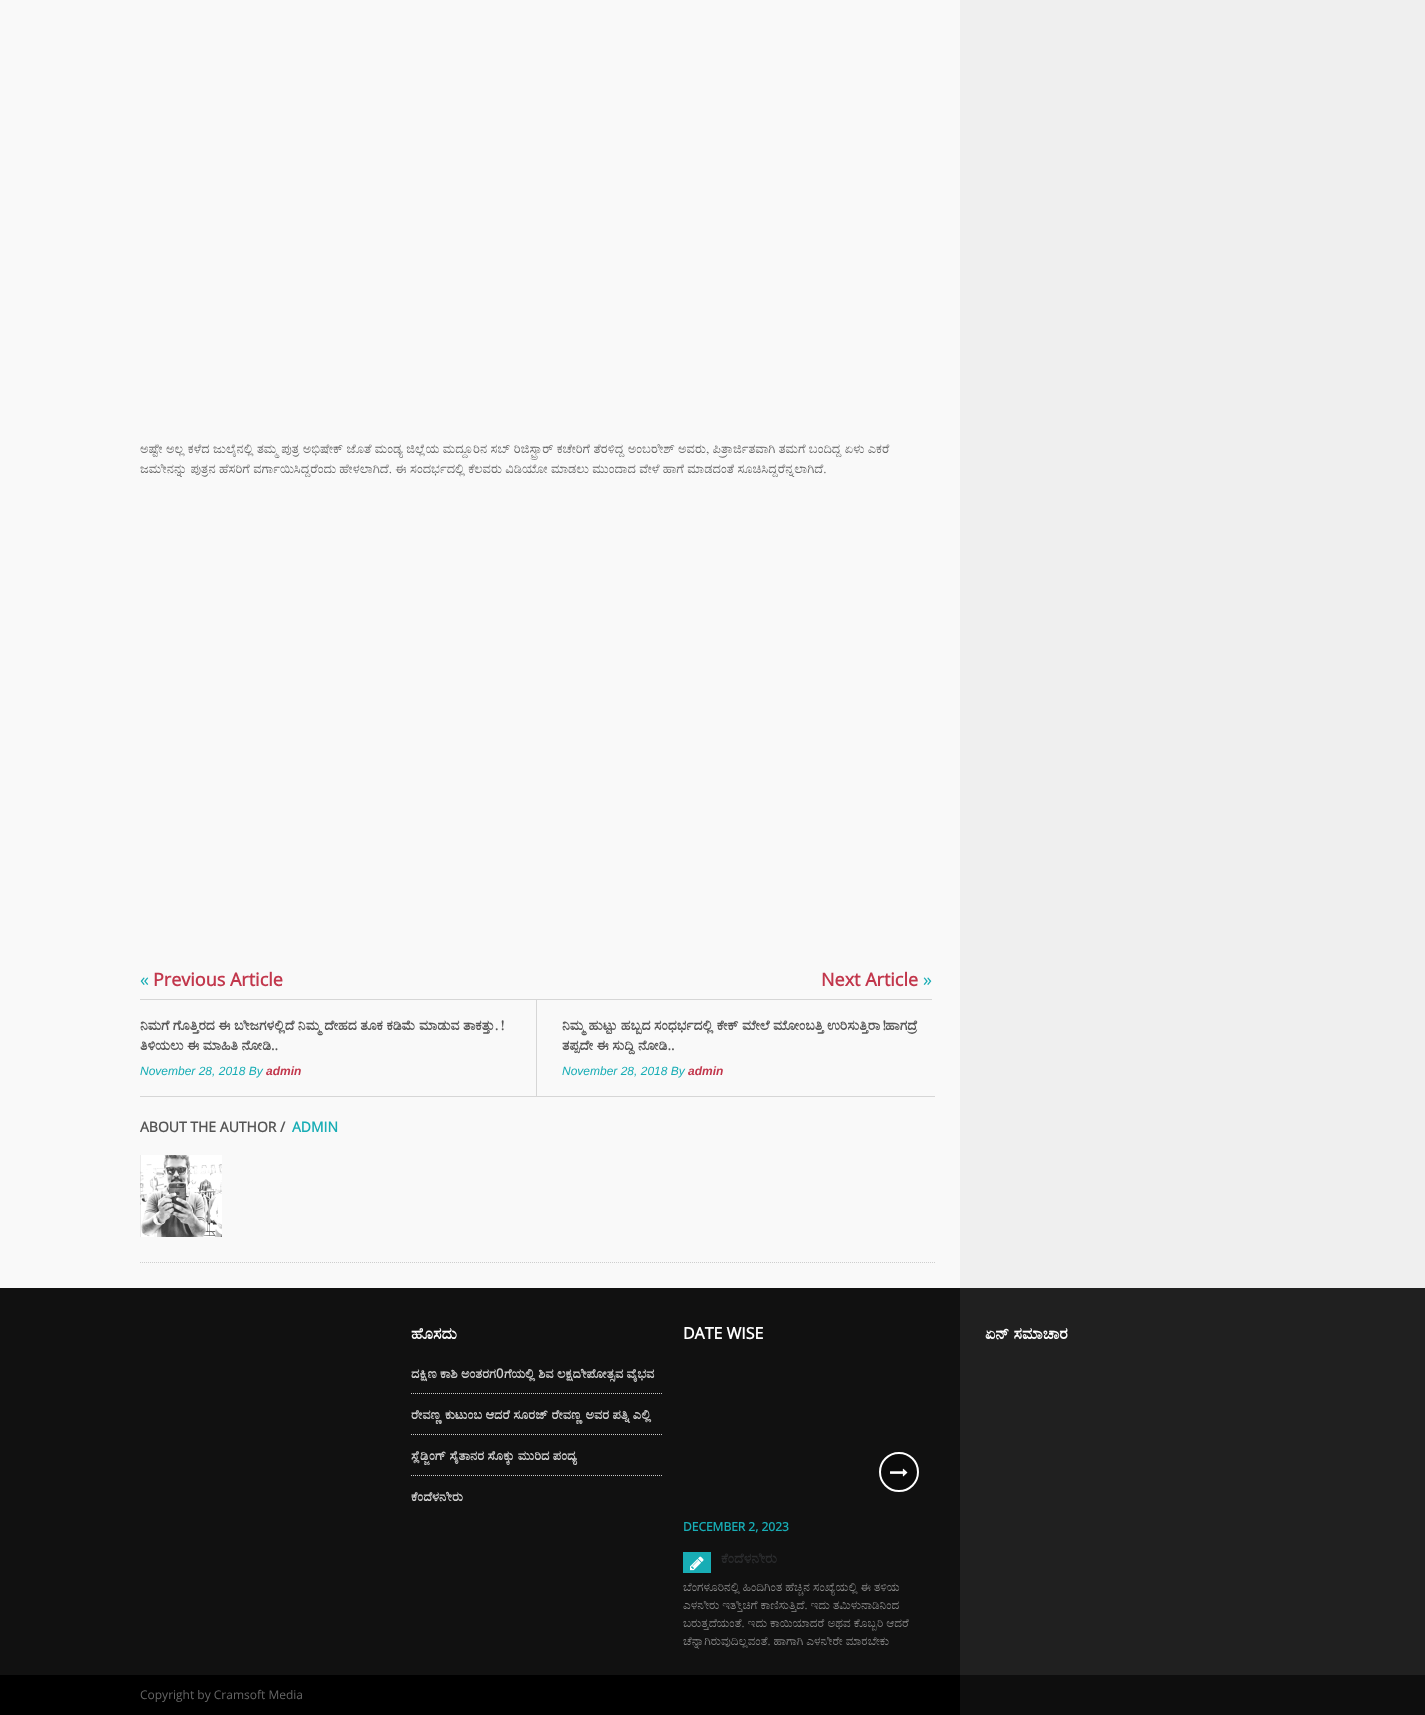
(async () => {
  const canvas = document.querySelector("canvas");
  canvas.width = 1425;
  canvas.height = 1715;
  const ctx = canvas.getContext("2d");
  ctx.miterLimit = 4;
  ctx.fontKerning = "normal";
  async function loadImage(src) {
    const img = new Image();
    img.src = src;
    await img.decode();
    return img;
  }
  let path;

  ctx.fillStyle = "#f9f9f9";
  ctx.fillRect(0, 0, 1425, 1715);
  for (const [x, y, w, h, color] of [
    [140, 1096, 795, 1, "#d6d6d6"],
    [140, 999, 397, 1, "#d6d6d6"],
    [536, 999, 1, 97, "#d6d6d6"],
    [536, 999, 396, 1, "#d6d6d6"],
  ]) {
    ctx.fillStyle = color;
    ctx.fillRect(x, y, w, h);
  }
  path = new Path2D("M140 1262.5H935");
  ctx.strokeStyle = "#cecece";
  ctx.setLineDash([1, 1]);
  ctx.stroke(path);
  ctx.drawImage(await loadImage("img/1.png"), 140, 1155, 82, 82);
  ctx.fillStyle = "#efefef";
  ctx.fillRect(960, 0, 465, 1288);
  ctx.fillStyle = "#111111";
  ctx.fillRect(0, 1288, 960, 387);
  path = new Path2D("M411 1393.5H663");
  ctx.strokeStyle = "#c9c9c9";
  ctx.stroke(path);
  path = new Path2D("M411 1434.5H663");
  ctx.stroke(path);
  path = new Path2D("M411 1475.5H663");
  ctx.stroke(path);
  ctx.fillStyle = "#0b0b0b";
  ctx.beginPath();
  ctx.arc(899, 1472, 19, 0, Math.PI * 2);
  ctx.fill();
  ctx.strokeStyle = "#ffffff";
  ctx.lineWidth = 2;
  ctx.setLineDash([]);
  ctx.stroke();
  ctx.drawImage(await loadImage("img/2.png"), 890, 1468, 18, 9);
  ctx.fillStyle = "#18adb5";
  ctx.fillRect(683, 1552, 28, 21);
  ctx.drawImage(await loadImage("img/3.png"), 690, 1556, 14, 15);
  for (const [x, y, w, h, color] of [
    [960, 1288, 465, 387, "#202020"],
    [0, 1675, 960, 40, "#000000"],
    [960, 1675, 465, 40, "#0e0e0e"],
  ]) {
    ctx.fillStyle = color;
    ctx.fillRect(x, y, w, h);
  }
  ctx.wordSpacing = "0.1px";
  ctx.font = "13px FreeSerif";
  ctx.fillStyle = "#666666";
  ctx.fillText("ಅಷ್ಟೇ ಅಲ್ಲ ಕಳೆದ ಜುಲೈನಲ್ಲಿ ತಮ್ಮ ಪುತ್ರ ಅಭಿಷೇಕ್ ಜೊತೆ ಮಂಡ್ಯ ಜಿಲ್ಲೆಯ ಮದ್ದೂರಿನ ಸಬ್ ರಿಜಿಸ್ಟ್ರಾರ್ ಕಚೇರಿಗೆ ತೆರಳಿದ್ದ ಅಂಬರೀಶ್ ಅವರು, ಪಿತ್ರಾರ್ಜಿತವಾಗಿ ತಮಗೆ ಬಂದಿದ್ದ ಏಳು ಎಕರೆ", 140, 453);
  ctx.fillText("ಜಮೀನನ್ನು ಪುತ್ರನ ಹೆಸರಿಗೆ ವರ್ಗಾಯಿಸಿದ್ದರೆಂದು ಹೇಳಲಾಗಿದೆ. ಈ ಸಂದರ್ಭದಲ್ಲಿ ಕೆಲವರು ವಿಡಿಯೋ ಮಾಡಲು ಮುಂದಾದ ವೇಳೆ ಹಾಗೆ ಮಾಡದಂತೆ ಸೂಚಿಸಿದ್ದರೆನ್ನಲಾಗಿದೆ.", 140, 473);
  ctx.wordSpacing = "0px";
  ctx.font = "18px Open Sans";
  ctx.fillStyle = "#18adb5";
  ctx.fillText("«", 140, 986);
  ctx.font = "bold 18px Open Sans";
  ctx.fillStyle = "#c2374c";
  ctx.fillText("Previous Article", 153, 986);
  ctx.font = "bold 14px FreeSerif";
  ctx.fillStyle = "#555555";
  ctx.fillText("ನಿಮಗೆ ಗೊತ್ತಿರದ ಈ ಬೀಜಗಳಲ್ಲಿದೆ ನಿಮ್ಮ ದೇಹದ ತೂಕ ಕಡಿಮೆ ಮಾಡುವ ತಾಕತ್ತು.!", 140, 1030);
  ctx.fillText("ತಿಳಿಯಲು ಈ ಮಾಹಿತಿ ನೋಡಿ..", 140, 1050);
  ctx.font = "italic 12px Liberation Sans";
  ctx.fillStyle = "#18adb5";
  ctx.fillText("November 28, 2018 By", 140, 1075);
  ctx.font = "italic bold 12px Liberation Sans";
  ctx.fillStyle = "#c2374c";
  ctx.fillText("admin", 266, 1075);
  ctx.font = "bold 18px Open Sans";
  ctx.fillText("Next Article", 821, 986);
  ctx.font = "18px Open Sans";
  ctx.fillStyle = "#18adb5";
  ctx.fillText("»", 923, 986);
  ctx.font = "bold 14px FreeSerif";
  ctx.fillStyle = "#555555";
  ctx.fillText("ನಿಮ್ಮ ಹುಟ್ಟು ಹಬ್ಬದ ಸಂಧರ್ಭದಲ್ಲಿ ಕೇಕ್ ಮೇಲೆ ಮೋಂಬತ್ತಿ ಉರಿಸುತ್ತಿರಾ!ಹಾಗದ್ರೆ", 562, 1030);
  ctx.fillText("ತಪ್ಪದೇ ಈ ಸುದ್ದಿ ನೋಡಿ..", 562, 1050);
  ctx.font = "italic 12px Liberation Sans";
  ctx.fillStyle = "#18adb5";
  ctx.fillText("November 28, 2018 By", 562, 1075);
  ctx.font = "italic bold 12px Liberation Sans";
  ctx.fillStyle = "#c2374c";
  ctx.fillText("admin", 688, 1075);
  ctx.font = "bold 14px Open Sans";
  ctx.fillStyle = "#555555";
  ctx.fillText("ABOUT THE AUTHOR /", 140, 1132);
  ctx.fillStyle = "#18adb5";
  ctx.fillText("ADMIN", 292, 1132);
  ctx.font = "bold 16px FreeSerif";
  ctx.fillStyle = "#ffffff";
  ctx.fillText("ಹೊಸದು", 411, 1339);
  ctx.wordSpacing = "0.1px";
  ctx.font = "bold 13px FreeSerif";
  ctx.fillStyle = "#d0d0d0";
  ctx.fillText("ದಕ್ಷಿಣ ಕಾಶಿ ಅಂತರಗ", 411, 1378);
  ctx.wordSpacing = "0px";
  ctx.font = "bold 13px Open Sans";
  ctx.fillText("0", 496, 1378);
  ctx.wordSpacing = "0.1px";
  ctx.font = "bold 13px FreeSerif";
  for (const [text, x, y] of [
    ["ಗೆಯಲ್ಲಿ ಶಿವ ಲಕ್ಷದೀಪೋತ್ಸವ ವೈಭವ", 504, 1378],
    ["ರೇವಣ್ಣ ಕುಟುಂಬ ಆದರೆ ಸೂರಜ್ ರೇವಣ್ಣ ಅವರ ಪತ್ನಿ ಎಲ್ಲಿ", 411, 1419],
    ["ಸ್ಲೆಡ್ಜಿಂಗ್ ಸೈತಾನರ ಸೊಕ್ಕು ಮುರಿದ ಪಂದ್ಯ", 411, 1460],
  ]) {
    ctx.fillText(text, x, y);
  }
  ctx.wordSpacing = "0px";
  ctx.fillText("ಕೆಂದೆಳನೀರು", 411, 1501);
  ctx.font = "bold 16px Open Sans";
  ctx.fillStyle = "#ffffff";
  ctx.fillText("DATE WISE", 683, 1339);
  ctx.font = "bold 12px Open Sans";
  ctx.fillStyle = "#18adb5";
  ctx.fillText("DECEMBER 2, 2023", 683, 1531);
  ctx.font = "bold 14px FreeSerif";
  ctx.fillStyle = "#2b2c2e";
  ctx.fillText("ಕೆಂದೆಳನೀರು", 721, 1563);
  ctx.font = "12px FreeSerif";
  ctx.fillStyle = "#8a8a8a";
  ctx.fillText("ಬೆಂಗಳೂರಿನಲ್ಲಿ ಹಿಂದಿಗಿಂತ ಹೆಚ್ಚಿನ ಸಂಖ್ಯೆಯಲ್ಲಿ ಈ ತಳಿಯ", 683, 1591);
  ctx.fillText("ಎಳನೀರು ಇತ್ತೀಚಿಗೆ ಕಾಣಿಸುತ್ತಿದೆ. ಇದು ತಮಿಳುನಾಡಿನಿಂದ", 683, 1609);
  ctx.wordSpacing = "0.1px";
  ctx.fillText("ಬರುತ್ತದೆಯಂತೆ. ಇದು ಕಾಯಿಯಾದರೆ ಅಥವ ಕೊಬ್ಬರಿ ಆದರೆ", 683, 1627);
  ctx.wordSpacing = "0px";
  ctx.fillText("ಚೆನ್ನಾಗಿರುವುದಿಲ್ಲವಂತೆ. ಹಾಗಾಗಿ ಎಳನೀರೇ ಮಾರಬೇಕು", 683, 1645);
  ctx.font = "bold 16px FreeSerif";
  ctx.fillStyle = "#ffffff";
  ctx.fillText("ಏನ್ ಸಮಾಚಾರ", 985, 1339);
  ctx.font = "12px Open Sans";
  ctx.fillStyle = "#666666";
  ctx.fillText("Copyright by Cramsoft Media", 140, 1699);
})();
